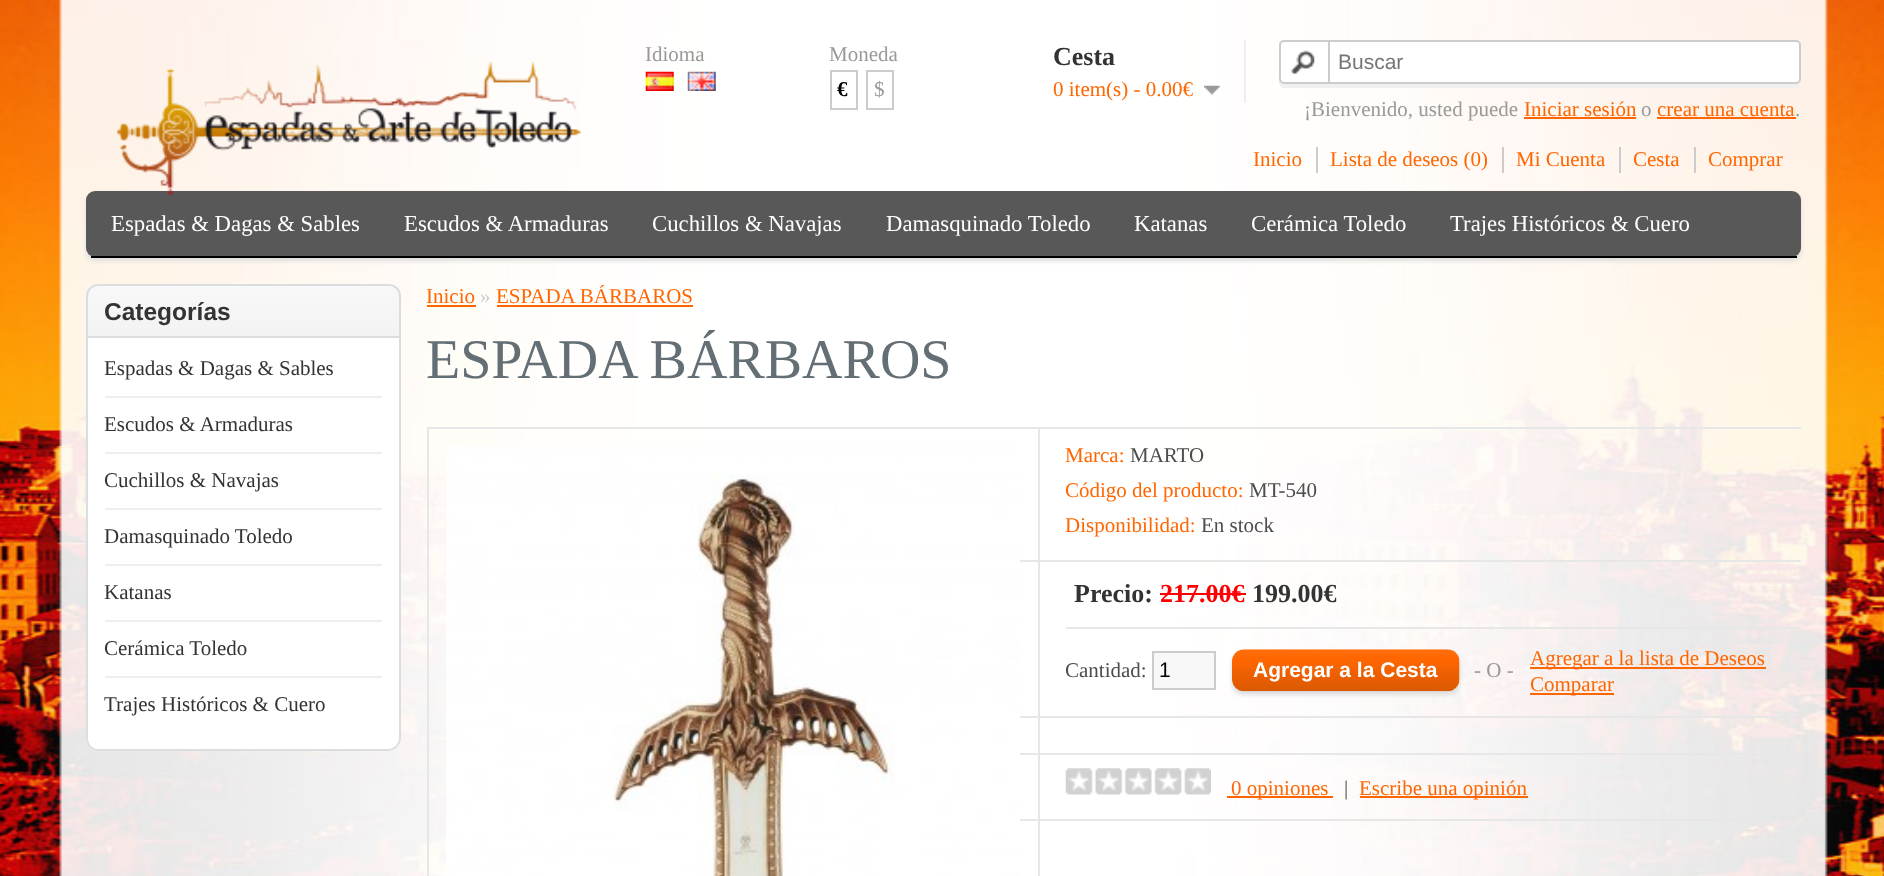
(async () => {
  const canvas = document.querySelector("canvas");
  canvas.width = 1884;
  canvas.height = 876;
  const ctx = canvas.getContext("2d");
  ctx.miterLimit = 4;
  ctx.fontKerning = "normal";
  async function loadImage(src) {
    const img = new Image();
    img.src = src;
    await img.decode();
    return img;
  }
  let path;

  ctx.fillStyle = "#ffffff";
  ctx.fillRect(0, 0, 1884, 876);
  ctx.drawImage(await loadImage("img/1.png"), 0, 0, 1884, 876);
  ctx.fillStyle = "#dddddd";
  ctx.filter = "blur(2px)";
  ctx.beginPath();
  ctx.roundRect(86, 194, 1715, 67, 9);
  ctx.fill();
  ctx.filter = "none";
  ctx.fillStyle = "#585858";
  ctx.beginPath();
  ctx.roundRect(86, 191, 1715, 66, 9);
  ctx.fill();
  ctx.drawImage(await loadImage("img/2.png"), 116, 61, 465, 134);
  ctx.drawImage(await loadImage("img/3.png"), 645, 71, 29, 20);
  ctx.drawImage(await loadImage("img/4.png"), 687, 71, 29, 20);
  ctx.strokeStyle = "#cccccc";
  ctx.lineWidth = 2;
  ctx.strokeRect(831, 71, 26, 38);
  ctx.strokeRect(867, 71, 26, 38);
  ctx.fillStyle = "#eeeeee";
  ctx.fillRect(1244, 40, 2, 63);
  ctx.drawImage(await loadImage("img/5.png"), 1204, 85, 16, 10);
  ctx.fillStyle = "#f0f0f0";
  path = new Path2D("M1279 47V72C1279 76 1277 88 1284 88H1796C1803 88 1801 76 1801 72V47V79C1801 82 1798 84 1796 84H1284C1282 84 1279 82 1279 79Z");
  ctx.fill(path);
  ctx.fillStyle = "#ffffff";
  ctx.beginPath();
  ctx.roundRect(1280, 41, 520, 42, 4);
  ctx.fill();
  ctx.stroke();
  ctx.drawImage(await loadImage("img/6.png"), 1291, 50, 24, 24);
  for (const [x, y, w, h, color] of [
    [1328, 40, 2, 42, "#cccccc"],
    [1524, 117, 112, 2, "#ff6600"],
    [1657, 117, 139, 2, "#ff6600"],
    [1316, 147, 2, 26, "#cccccc"],
    [1502, 147, 2, 26, "#cccccc"],
    [1619, 147, 2, 26, "#cccccc"],
    [1694, 147, 2, 26, "#cccccc"],
    [91, 256, 1706, 2, "#000000"],
  ]) {
    ctx.fillStyle = color;
    ctx.fillRect(x, y, w, h);
  }
  ctx.drawImage(await loadImage("img/7.png"), 86, 285, 315, 51);
  ctx.beginPath();
  ctx.roundRect(87, 285, 313, 52, [11, 11, 0, 0]);
  ctx.strokeStyle = "#dbdee1";
  ctx.stroke();
  ctx.fillStyle = "#ffffff";
  ctx.beginPath();
  ctx.roundRect(86, 338, 315, 413, [0, 0, 12, 12]);
  ctx.fill();
  ctx.fillStyle = "#dbdee1";
  path = new Path2D("M86 338H401V738C401 745 395 751 388 751H98C91 751 86 745 86 738ZM88 338H399V738C399 744 394 749 388 749H98C92 749 88 744 88 738Z");
  ctx.fill(path, "evenodd");
  for (const [x, y, w, h, color] of [
    [105, 396, 277, 2, "#eeeeee"],
    [105, 452, 277, 2, "#eeeeee"],
    [105, 508, 277, 2, "#eeeeee"],
    [105, 564, 277, 2, "#eeeeee"],
    [105, 620, 277, 2, "#eeeeee"],
    [105, 676, 277, 2, "#eeeeee"],
    [427, 305, 49, 2, "#ff6600"],
    [497, 305, 196, 2, "#ff6600"],
    [1020, 560, 781, 2, "#e7e7e7"],
    [1020, 716, 781, 2, "#e7e7e7"],
    [1020, 753, 781, 2, "#e7e7e7"],
    [1020, 819, 779, 2, "#e7e7e7"],
  ]) {
    ctx.fillStyle = color;
    ctx.fillRect(x, y, w, h);
  }
  ctx.strokeStyle = "#e7e7e7";
  ctx.strokeRect(428, 428, 611, 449);
  ctx.drawImage(await loadImage("img/8.png"), 446, 446, 575, 430);
  for (const [x, y, w, h, color] of [
    [1040, 427, 761, 2, "#e7e7e7"],
    [1066, 627, 735, 2, "#e7e7e7"],
    [1160, 593, 86, 2, "#ff0000"],
  ]) {
    ctx.fillStyle = color;
    ctx.fillRect(x, y, w, h);
  }
  ctx.fillStyle = "#f8f8f8";
  ctx.beginPath();
  ctx.rect(1153, 652, 62, 37);
  ctx.fill();
  ctx.strokeStyle = "#cccccc";
  ctx.stroke();
  ctx.fillStyle = "#dddddd";
  ctx.filter = "blur(2px)";
  ctx.beginPath();
  ctx.roundRect(1232, 653, 228, 42, 12);
  ctx.fill();
  ctx.filter = "none";
  ctx.drawImage(await loadImage("img/9.png"), 1232, 649, 228, 43);
  for (const [x, y, w, h, color] of [
    [1530, 667, 236, 2, "#ff6600"],
    [1530, 693, 84, 2, "#ff6600"],
    [1799, 753, 2, 68, "#e7e7e7"],
  ]) {
    ctx.fillStyle = color;
    ctx.fillRect(x, y, w, h);
  }
  ctx.drawImage(await loadImage("img/10.png"), 1065, 768, 146, 27);
  ctx.fillStyle = "#ff6600";
  ctx.fillRect(1227, 796, 106, 2);
  ctx.fillRect(1360, 796, 168, 2);
  ctx.font = "21px Liberation Serif";
  ctx.fillStyle = "#999999";
  ctx.fillText("Idioma", 645, 61);
  ctx.fillText("Moneda", 829, 61);
  ctx.font = "bold 21px Liberation Serif";
  ctx.fillStyle = "#000000";
  ctx.fillText("€", 837, 96);
  ctx.font = "21px Liberation Serif";
  ctx.fillStyle = "#999999";
  ctx.fillText("$", 874, 96);
  ctx.font = "bold 26px Liberation Serif";
  ctx.fillStyle = "#333333";
  ctx.fillText("Cesta", 1053, 65);
  ctx.font = "21px Liberation Serif";
  ctx.fillStyle = "#ff6600";
  ctx.fillText("0 item(s) - 0.00€", 1053, 96);
  ctx.font = "21px Liberation Sans";
  ctx.fillStyle = "#757575";
  ctx.fillText("Buscar", 1338, 69);
  ctx.font = "21px Liberation Serif";
  ctx.fillStyle = "#999999";
  ctx.fillText("¡Bienvenido, usted puede", 1304, 116);
  ctx.fillStyle = "#ff6600";
  ctx.fillText("Iniciar sesión", 1524, 116);
  ctx.fillStyle = "#999999";
  ctx.fillText("o", 1641, 116);
  ctx.fillStyle = "#ff6600";
  ctx.fillText("crear una cuenta", 1657, 116);
  ctx.fillStyle = "#999999";
  ctx.fillText(".", 1795, 116);
  ctx.fillStyle = "#ff6600";
  for (const [text, x, y] of [
    ["Inicio", 1253, 166],
    ["Lista de deseos (0)", 1330, 166],
    ["Mi Cuenta", 1516, 166],
    ["Cesta", 1633, 166],
    ["Comprar", 1708, 166],
  ]) {
    ctx.fillText(text, x, y);
  }
  ctx.font = "22.75px Liberation Serif";
  ctx.fillStyle = "#ffffff";
  for (const [text, x, y] of [
    ["Espadas & Dagas & Sables", 111, 231],
    ["Escudos & Armaduras", 404, 231],
    ["Cuchillos & Navajas", 652, 231],
    ["Damasquinado Toledo", 886, 231],
    ["Katanas", 1134, 231],
    ["Cerámica Toledo", 1251, 231],
    ["Trajes Históricos & Cuero", 1450, 231],
  ]) {
    ctx.fillText(text, x, y);
  }
  ctx.font = "bold 24.5px Liberation Sans";
  ctx.fillStyle = "#333333";
  ctx.fillText("Categorías", 104, 320);
  ctx.font = "21px Liberation Serif";
  for (const [text, x, y] of [
    ["Espadas & Dagas & Sables", 104, 375],
    ["Escudos & Armaduras", 104, 431],
    ["Cuchillos & Navajas", 104, 487],
    ["Damasquinado Toledo", 104, 543],
    ["Katanas", 104, 599],
    ["Cerámica Toledo", 104, 655],
    ["Trajes Históricos & Cuero", 104, 711],
  ]) {
    ctx.fillText(text, x, y);
  }
  ctx.fillStyle = "#ff6600";
  ctx.fillText("Inicio", 426, 303);
  ctx.fillStyle = "#cccccc";
  ctx.fillText("»", 480, 303);
  ctx.fillStyle = "#ff6600";
  ctx.fillText("ESPADA BÁRBAROS", 496, 303);
  ctx.font = "56px Liberation Serif";
  ctx.fillStyle = "#636e75";
  ctx.fillText("ESPADA BÁRBAROS", 426, 378);
  ctx.font = "21px Liberation Serif";
  ctx.fillStyle = "#ff6600";
  ctx.fillText("Marca:", 1065, 462);
  ctx.fillStyle = "#4d4d4d";
  ctx.fillText("MARTO", 1130, 462);
  ctx.fillStyle = "#ff6600";
  ctx.fillText("Código del producto:", 1065, 497);
  ctx.fillStyle = "#4d4d4d";
  ctx.fillText("MT-540", 1249, 497);
  ctx.fillStyle = "#ff6600";
  ctx.fillText("Disponibilidad:", 1065, 532);
  ctx.fillStyle = "#4d4d4d";
  ctx.fillText("En stock", 1201, 532);
  ctx.font = "bold 26px Liberation Serif";
  ctx.fillStyle = "#333333";
  ctx.fillText("Precio:", 1074, 602);
  ctx.fillStyle = "#ff0000";
  ctx.fillText("217.00€", 1160, 602);
  ctx.fillStyle = "#333333";
  ctx.fillText("199.00€", 1252, 602);
  ctx.font = "21px Liberation Serif";
  ctx.fillStyle = "#4d4d4d";
  ctx.fillText("Cantidad:", 1065, 677);
  ctx.font = "21px Liberation Sans";
  ctx.fillStyle = "#000000";
  ctx.fillText("1", 1159, 677);
  ctx.font = "bold 21px Liberation Sans";
  ctx.fillStyle = "#ffffff";
  ctx.fillText("Agregar a la Cesta", 1253, 677);
  ctx.font = "21px Liberation Serif";
  ctx.fillStyle = "#999999";
  ctx.fillText("- O -", 1474, 677);
  ctx.fillStyle = "#ff6600";
  for (const [text, x, y] of [
    ["Agregar a la lista de Deseos", 1530, 665],
    ["Comparar", 1530, 691],
    ["0 opiniones", 1231, 795],
  ]) {
    ctx.fillText(text, x, y);
  }
  ctx.fillStyle = "#4d4d4d";
  ctx.fillText("|", 1344, 795);
  ctx.fillStyle = "#ff6600";
  ctx.fillText("Escribe una opinión", 1359, 795);
})();
